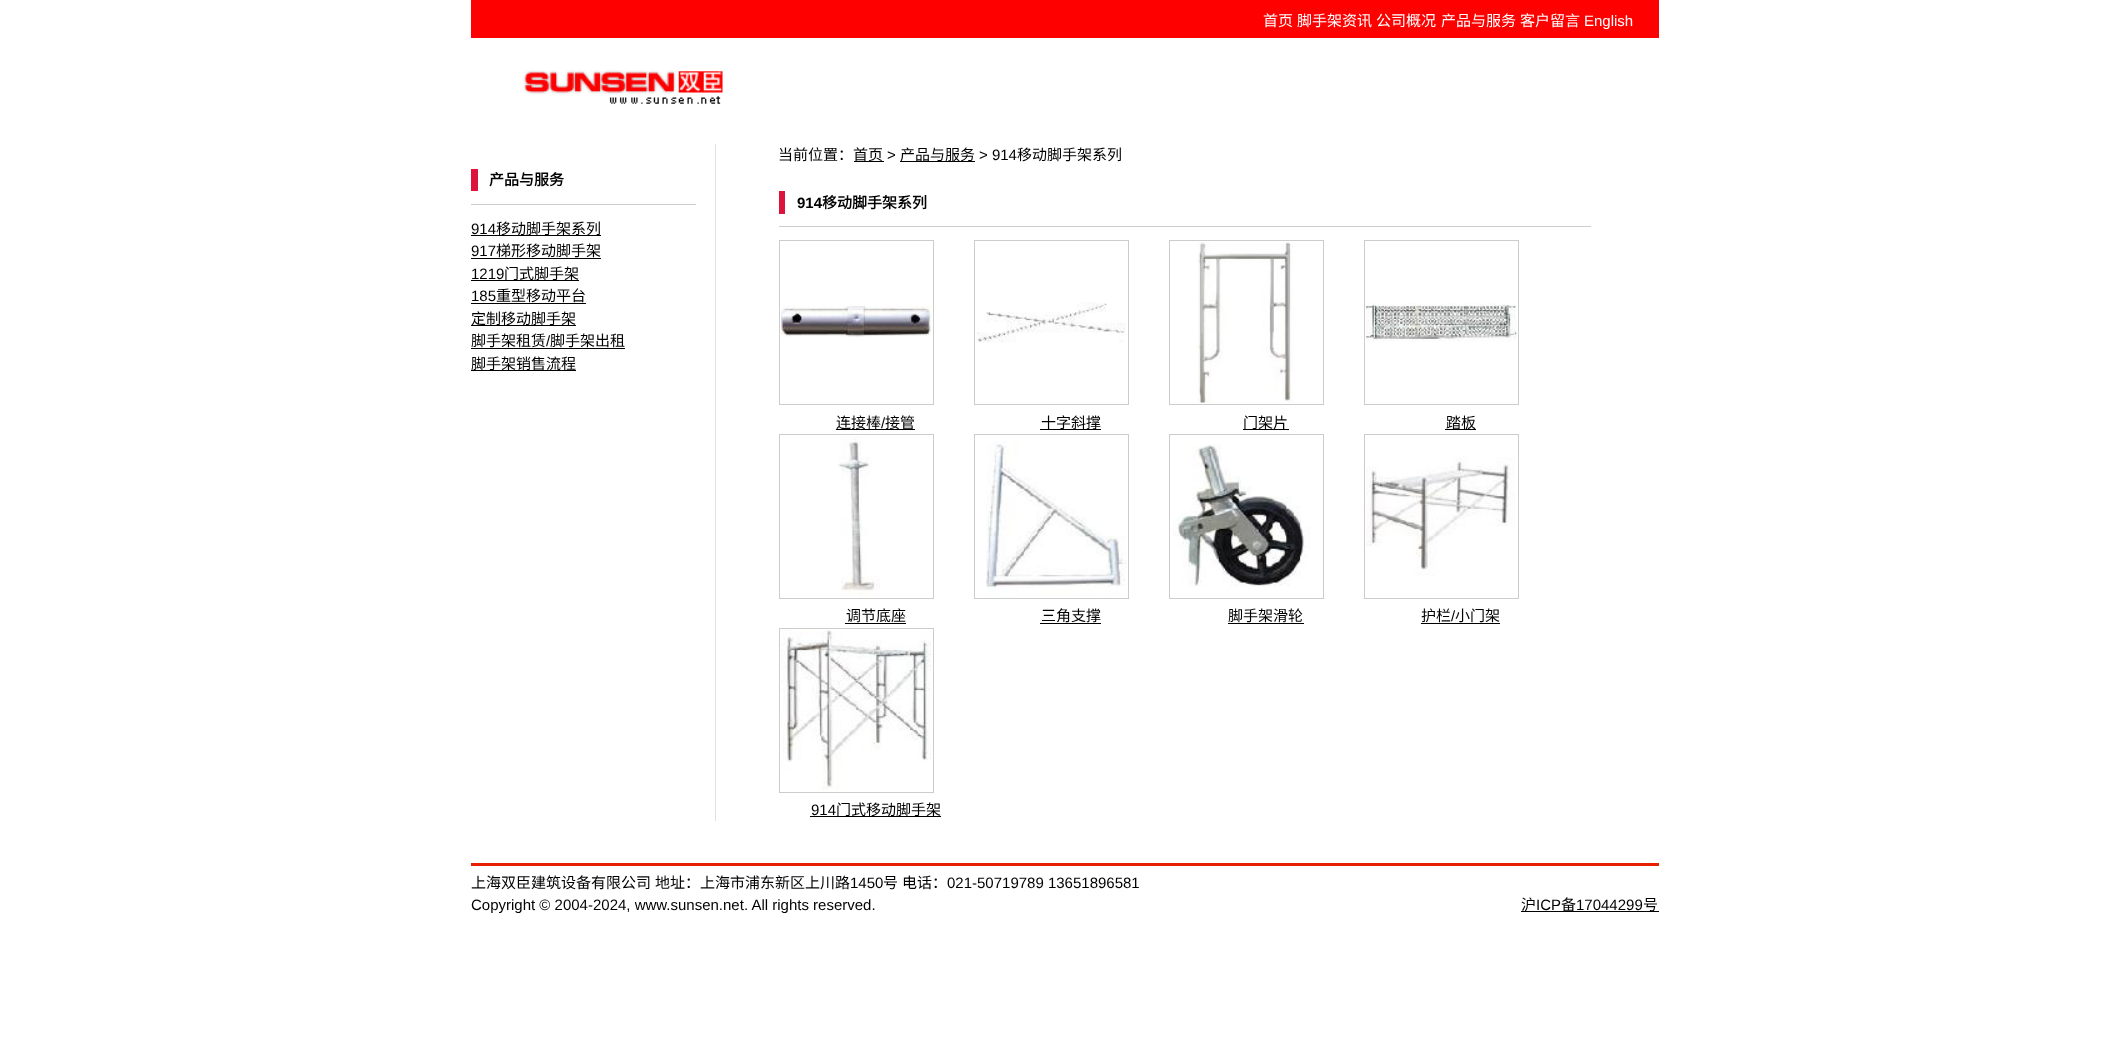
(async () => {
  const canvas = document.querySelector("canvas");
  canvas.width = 2128;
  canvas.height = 1038;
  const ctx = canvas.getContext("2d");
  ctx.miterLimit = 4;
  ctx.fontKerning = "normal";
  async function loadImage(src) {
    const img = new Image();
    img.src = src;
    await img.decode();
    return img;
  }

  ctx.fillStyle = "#ffffff";
  ctx.fillRect(0, 0, 2128, 1038);
  ctx.fillStyle = "#ff0000";
  ctx.fillRect(471, 0, 1188, 38);
  ctx.drawImage(await loadImage("img/1.png"), 523, 69, 200, 35);
  for (const [x, y, w, h, color] of [
    [471, 169, 7, 22, "#dc143c"],
    [471, 204, 225, 1, "#cccccc"],
    [471, 235, 130, 1, "#000000"],
    [471, 258, 130, 1, "#000000"],
    [471, 280, 108, 1, "#000000"],
    [471, 303, 115, 1, "#000000"],
    [471, 325, 105, 1, "#000000"],
    [471, 348, 154, 1, "#000000"],
    [471, 370, 105, 1, "#000000"],
    [715, 144, 1, 677, "#d9e3e5"],
    [854, 161, 30, 1, "#000000"],
    [900, 161, 75, 1, "#000000"],
    [779, 191, 6, 23, "#dc143c"],
    [779, 226, 812, 1, "#cccccc"],
  ]) {
    ctx.fillStyle = color;
    ctx.fillRect(x, y, w, h);
  }
  ctx.strokeStyle = "#cccccc";
  ctx.strokeRect(779.5, 240.5, 154, 164);
  ctx.drawImage(await loadImage("img/2.png"), 781, 305, 151, 32);
  ctx.fillStyle = "#000000";
  ctx.fillRect(836, 429, 79, 1);
  ctx.strokeRect(974.5, 240.5, 154, 164);
  ctx.drawImage(await loadImage("img/3.png"), 976, 302, 150, 41);
  ctx.fillRect(1040, 429, 61, 1);
  ctx.strokeRect(1169.5, 240.5, 154, 164);
  ctx.drawImage(await loadImage("img/4.png"), 1197, 242, 98, 161);
  ctx.fillRect(1243, 429, 46, 1);
  ctx.strokeRect(1364.5, 240.5, 154, 164);
  ctx.drawImage(await loadImage("img/5.png"), 1366, 303, 151, 39);
  ctx.fillRect(1445, 429, 31, 1);
  ctx.strokeRect(779.5, 434.5, 154, 164);
  ctx.drawImage(await loadImage("img/6.png"), 838, 436, 42, 160);
  ctx.fillRect(845, 623, 61, 1);
  ctx.strokeRect(974.5, 434.5, 154, 164);
  ctx.drawImage(await loadImage("img/7.png"), 986, 441, 141, 155);
  ctx.fillRect(1040, 623, 61, 1);
  ctx.strokeRect(1169.5, 434.5, 154, 164);
  ctx.drawImage(await loadImage("img/8.png"), 1173, 444, 137, 143);
  ctx.fillRect(1228, 623, 76, 1);
  ctx.strokeRect(1364.5, 434.5, 154, 164);
  ctx.drawImage(await loadImage("img/9.png"), 1366, 456, 149, 120);
  ctx.fillRect(1421, 623, 79, 1);
  ctx.strokeRect(779.5, 628.5, 154, 164);
  ctx.drawImage(await loadImage("img/10.png"), 781, 630, 151, 160);
  for (const [x, y, w, h, color] of [
    [810, 816, 131, 1, "#000000"],
    [471, 863, 1188, 3, "#e62001"],
    [1521, 911, 138, 1, "#000000"],
  ]) {
    ctx.fillStyle = color;
    ctx.fillRect(x, y, w, h);
  }
  ctx.font = "15px Noto Sans CJK SC";
  ctx.fillStyle = "#ffffff";
  for (const [text, x, y] of [
    ["首页", 1263, 26],
    ["脚手架资讯", 1297, 26],
    ["公司概况", 1376, 26],
    ["产品与服务", 1441, 26],
    ["客户留言", 1520, 26],
  ]) {
    ctx.fillText(text, x, y);
  }
  ctx.font = "15px Liberation Sans";
  ctx.fillText("English", 1584, 26);
  ctx.font = "bold 15px Noto Sans CJK SC";
  ctx.fillStyle = "#000000";
  ctx.fillText("产品与服务", 489, 185);
  ctx.font = "15px Liberation Sans";
  ctx.fillText("914", 471, 234);
  ctx.font = "15px Noto Sans CJK SC";
  ctx.fillText("移动脚手架系列", 496, 234);
  ctx.font = "15px Liberation Sans";
  ctx.fillText("917", 471, 256);
  ctx.font = "15px Noto Sans CJK SC";
  ctx.fillText("梯形移动脚手架", 496, 256);
  ctx.font = "15px Liberation Sans";
  ctx.fillText("1219", 471, 279);
  ctx.font = "15px Noto Sans CJK SC";
  ctx.fillText("门式脚手架", 504, 279);
  ctx.font = "15px Liberation Sans";
  ctx.fillText("185", 471, 301);
  ctx.font = "15px Noto Sans CJK SC";
  for (const [text, x, y] of [
    ["重型移动平台", 496, 301],
    ["定制移动脚手架", 471, 324],
    ["脚手架租赁", 471, 346],
  ]) {
    ctx.fillText(text, x, y);
  }
  ctx.font = "15px Liberation Sans";
  ctx.fillText("/", 546, 346);
  ctx.font = "15px Noto Sans CJK SC";
  for (const [text, x, y] of [
    ["脚手架出租", 550, 346],
    ["脚手架销售流程", 471, 369],
    ["当前位置：", 778, 160],
    ["首页", 853, 160],
  ]) {
    ctx.fillText(text, x, y);
  }
  ctx.font = "15px Liberation Sans";
  ctx.fillText(">", 887, 160);
  ctx.font = "15px Noto Sans CJK SC";
  ctx.fillText("产品与服务", 900, 160);
  ctx.font = "15px Liberation Sans";
  ctx.fillText("> 914", 979, 160);
  ctx.font = "15px Noto Sans CJK SC";
  ctx.fillText("移动脚手架系列", 1017, 160);
  ctx.font = "bold 15px Liberation Sans";
  ctx.fillText("914", 797, 208);
  ctx.font = "bold 15px Noto Sans CJK SC";
  ctx.fillText("移动脚手架系列", 822, 208);
  ctx.font = "15px Noto Sans CJK SC";
  ctx.fillText("连接棒", 836, 428);
  ctx.font = "15px Liberation Sans";
  ctx.fillText("/", 881, 428);
  ctx.font = "15px Noto Sans CJK SC";
  for (const [text, x, y] of [
    ["接管", 885, 428],
    ["十字斜撑", 1041, 428],
    ["门架片", 1243, 428],
    ["踏板", 1446, 428],
    ["调节底座", 846, 621],
    ["三角支撑", 1041, 621],
    ["脚手架滑轮", 1228, 621],
    ["护栏", 1421, 621],
  ]) {
    ctx.fillText(text, x, y);
  }
  ctx.font = "15px Liberation Sans";
  ctx.fillText("/", 1451, 621);
  ctx.font = "15px Noto Sans CJK SC";
  ctx.fillText("小门架", 1455, 621);
  ctx.font = "15px Liberation Sans";
  ctx.fillText("914", 811, 815);
  ctx.font = "15px Noto Sans CJK SC";
  for (const [text, x, y] of [
    ["门式移动脚手架", 836, 815],
    ["上海双臣建筑设备有限公司", 471, 888],
    ["地址：上海市浦东新区上川路", 655, 888],
  ]) {
    ctx.fillText(text, x, y);
  }
  ctx.font = "15px Liberation Sans";
  ctx.fillText("1450", 850, 888);
  ctx.font = "15px Noto Sans CJK SC";
  ctx.fillText("号", 883, 888);
  ctx.fillText("电话：", 902, 888);
  ctx.font = "15px Liberation Sans";
  ctx.fillText("021-50719789 13651896581", 947, 888);
  ctx.fillText("Copyright © 2004-2024, www.sunsen.net. All rights reserved.", 471, 910);
  ctx.font = "15px Noto Sans CJK SC";
  ctx.fillText("沪", 1521, 910);
  ctx.font = "15px Liberation Sans";
  ctx.fillText("ICP", 1536, 910);
  ctx.font = "15px Noto Sans CJK SC";
  ctx.fillText("备", 1561, 910);
  ctx.font = "15px Liberation Sans";
  ctx.fillText("17044299", 1576, 910);
  ctx.font = "15px Noto Sans CJK SC";
  ctx.fillText("号", 1643, 910);
})();
